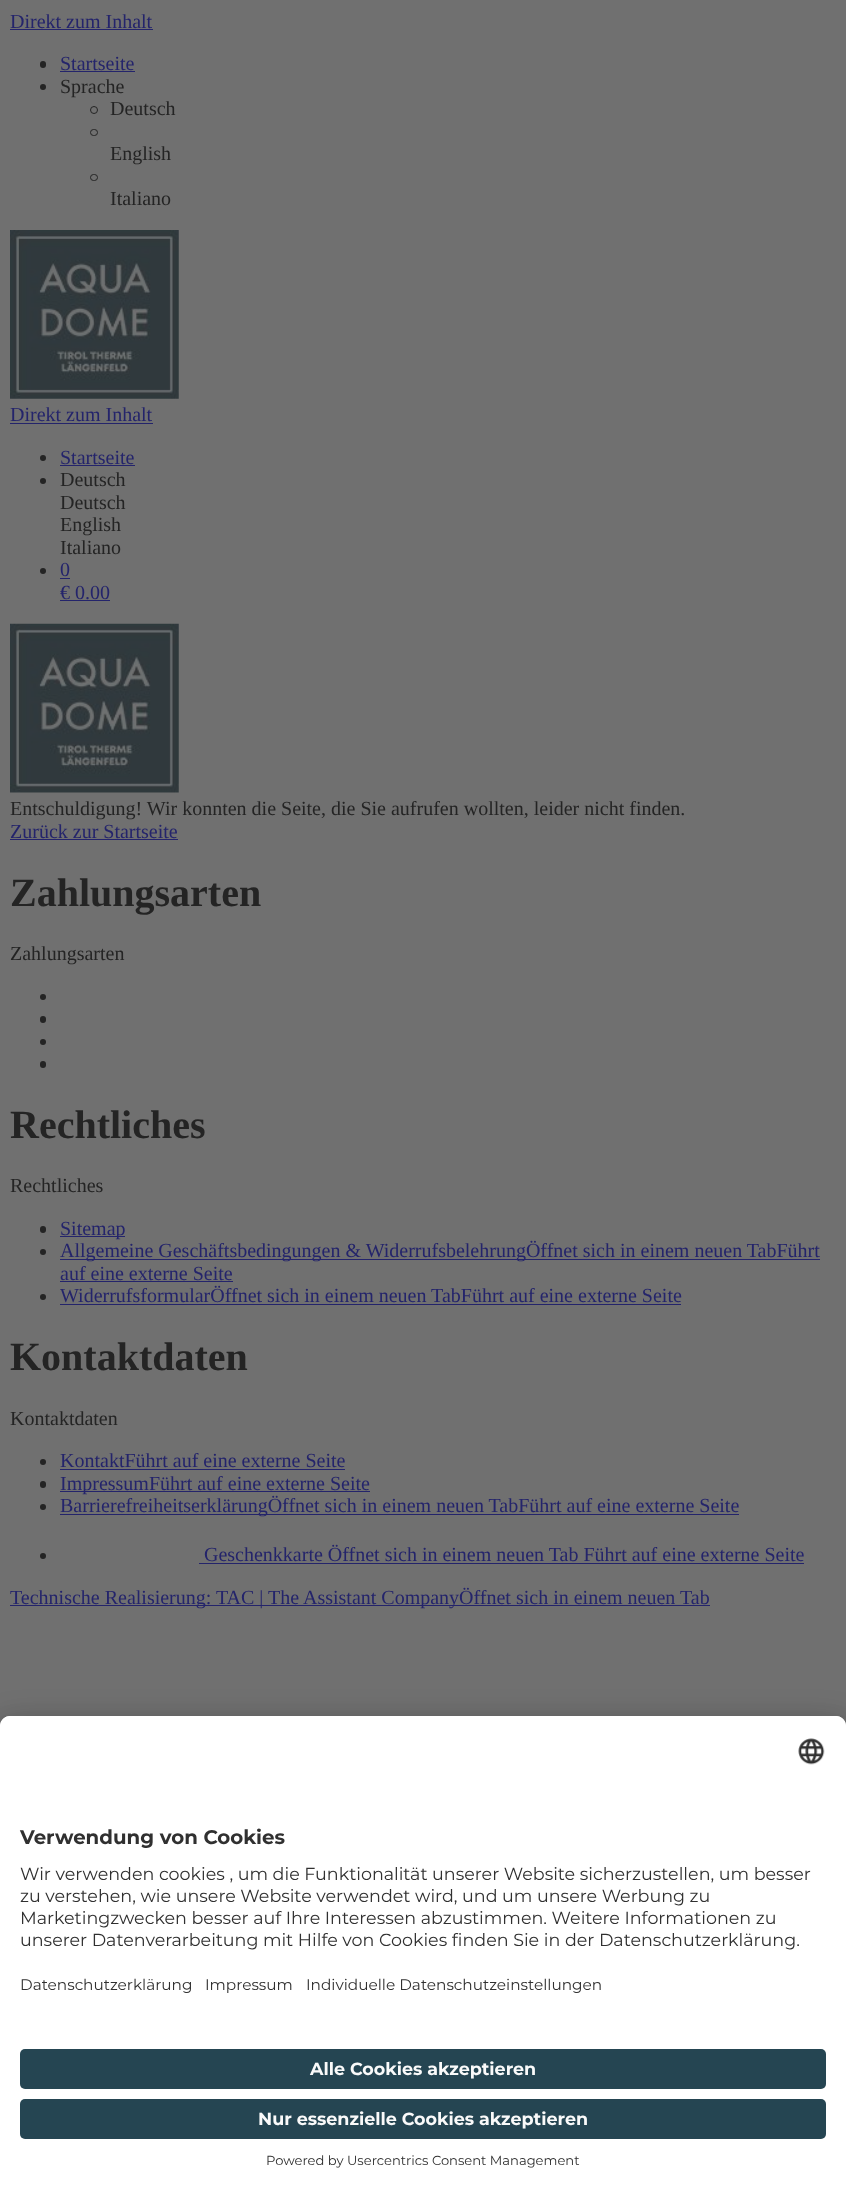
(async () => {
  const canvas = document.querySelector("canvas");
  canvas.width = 846;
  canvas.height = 2188;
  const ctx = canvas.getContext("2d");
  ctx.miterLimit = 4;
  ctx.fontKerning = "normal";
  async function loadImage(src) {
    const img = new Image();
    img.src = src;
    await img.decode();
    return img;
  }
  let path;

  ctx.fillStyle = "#707070";
  ctx.fillRect(0, 0, 846, 2188);
  ctx.fillStyle = "#24246b";
  ctx.fillRect(10, 29, 143, 1);
  ctx.fillStyle = "#242424";
  ctx.beginPath();
  ctx.roundRect(40, 61, 6, 7, 3);
  ctx.fill();
  ctx.fillStyle = "#24246b";
  ctx.fillRect(60, 71, 75, 1);
  ctx.fillStyle = "#242424";
  ctx.beginPath();
  ctx.arc(43, 87, 3, 0, Math.PI * 2);
  ctx.fill();
  ctx.beginPath();
  ctx.arc(94, 110, 3.5, 0, Math.PI * 2);
  ctx.strokeStyle = "#242424";
  ctx.stroke();
  ctx.beginPath();
  ctx.roundRect(90.5, 129.5, 7, 6, 3);
  ctx.stroke();
  ctx.beginPath();
  ctx.roundRect(90.5, 174.5, 7, 6, 3);
  ctx.stroke();
  ctx.drawImage(await loadImage("img/1.png"), 10, 230, 169, 169);
  ctx.fillStyle = "#24246b";
  ctx.fillRect(10, 423, 143, 1);
  ctx.fillStyle = "#242424";
  ctx.beginPath();
  ctx.arc(43, 458, 3, 0, Math.PI * 2);
  ctx.fill();
  ctx.fillStyle = "#24246b";
  ctx.fillRect(60, 465, 75, 1);
  ctx.fillStyle = "#242424";
  ctx.beginPath();
  ctx.arc(43, 481, 3, 0, Math.PI * 2);
  ctx.fill();
  ctx.beginPath();
  ctx.arc(43, 571, 3, 0, Math.PI * 2);
  ctx.fill();
  ctx.fillStyle = "#24246b";
  ctx.fillRect(60, 578, 10, 1);
  ctx.fillRect(60, 600, 50, 1);
  ctx.drawImage(await loadImage("img/2.png"), 10, 623, 169, 170);
  ctx.fillRect(10, 839, 168, 1);
  ctx.fillStyle = "#242424";
  ctx.beginPath();
  ctx.arc(43, 997, 3, 0, Math.PI * 2);
  ctx.fill();
  ctx.beginPath();
  ctx.roundRect(40, 1016, 6, 7, 3);
  ctx.fill();
  ctx.beginPath();
  ctx.arc(43, 1042, 3, 0, Math.PI * 2);
  ctx.fill();
  ctx.beginPath();
  ctx.roundRect(40, 1061, 6, 7, 3);
  ctx.fill();
  ctx.beginPath();
  ctx.roundRect(40, 1226, 6, 7, 3);
  ctx.fill();
  ctx.fillStyle = "#24246b";
  ctx.fillRect(60, 1236, 65, 1);
  ctx.fillStyle = "#242424";
  ctx.beginPath();
  ctx.arc(43, 1252, 3, 0, Math.PI * 2);
  ctx.fill();
  ctx.fillStyle = "#24246b";
  ctx.fillRect(60, 1259, 760, 1);
  ctx.fillRect(60, 1281, 173, 1);
  ctx.fillStyle = "#242424";
  ctx.beginPath();
  ctx.arc(43, 1297, 3, 0, Math.PI * 2);
  ctx.fill();
  ctx.fillStyle = "#24246b";
  ctx.fillRect(60, 1304, 621, 1);
  ctx.fillStyle = "#242424";
  ctx.beginPath();
  ctx.arc(43, 1462, 3, 0, Math.PI * 2);
  ctx.fill();
  ctx.fillStyle = "#24246b";
  ctx.fillRect(60, 1469, 285, 1);
  ctx.fillStyle = "#242424";
  ctx.beginPath();
  ctx.roundRect(40, 1481, 6, 7, 3);
  ctx.fill();
  ctx.fillStyle = "#24246b";
  ctx.fillRect(60, 1491, 310, 1);
  ctx.fillStyle = "#242424";
  ctx.beginPath();
  ctx.arc(43, 1507, 3, 0, Math.PI * 2);
  ctx.fill();
  ctx.fillStyle = "#24246b";
  ctx.fillRect(60, 1514, 679, 1);
  ctx.fillStyle = "#242424";
  ctx.beginPath();
  ctx.arc(43, 1556, 3, 0, Math.PI * 2);
  ctx.fill();
  for (const [x, y, w, h, color] of [
    [199, 1563, 605, 1, "#24246b"],
    [10, 1605, 449, 1, "#24246b"],
    [459, 1605, 251, 1, "#24246b"],
  ]) {
    ctx.fillStyle = color;
    ctx.fillRect(x, y, w, h);
  }
  ctx.fillStyle = "rgba(0, 0, 0, 0.3)";
  ctx.filter = "blur(17.5px)";
  ctx.beginPath();
  ctx.roundRect(0, 1741, 846, 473, 10);
  ctx.fill();
  ctx.filter = "none";
  ctx.fillStyle = "rgba(0, 0, 0, 0.22)";
  ctx.filter = "blur(16px)";
  ctx.beginPath();
  ctx.roundRect(0, 1723, 846, 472, 10);
  ctx.fill();
  ctx.filter = "none";
  ctx.fillStyle = "#ffffff";
  path = new Path2D("M10 1716H836C841.5 1716 846 1720.5 846 1726V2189H0V1726C0 1720.5 4.5 1716 10 1716Z");
  ctx.fill(path);
  ctx.beginPath();
  ctx.roundRect(0, 1716, 846, 318, [10, 10, 0, 0]);
  ctx.fill();
  ctx.drawImage(await loadImage("img/3.png"), 798, 1738, 27, 27);
  ctx.fillStyle = "#254552";
  ctx.beginPath();
  ctx.roundRect(20, 2049, 806, 40, 5);
  ctx.fill();
  ctx.beginPath();
  ctx.roundRect(20, 2099, 806, 40, 5);
  ctx.fill();
  ctx.font = "20px Liberation Serif";
  ctx.fillStyle = "#24246b";
  ctx.fillText("Direkt zum Inhalt", 10, 28);
  ctx.fillText("Startseite", 60, 70);
  ctx.fillStyle = "#242424";
  for (const [text, x, y] of [
    ["Sprache", 60, 93],
    ["Deutsch", 110, 115],
    ["English", 110, 160],
    ["Italiano", 110, 205],
  ]) {
    ctx.fillText(text, x, y);
  }
  ctx.fillStyle = "#24246b";
  ctx.fillText("Direkt zum Inhalt", 10, 421);
  ctx.fillText("Startseite", 60, 464);
  ctx.fillStyle = "#242424";
  for (const [text, x, y] of [
    ["Deutsch", 60, 486],
    ["Deutsch", 60, 509],
    ["English", 60, 531],
    ["Italiano", 60, 554],
  ]) {
    ctx.fillText(text, x, y);
  }
  ctx.fillStyle = "#24246b";
  ctx.fillText("0", 60, 576);
  ctx.fillText("€ 0.00", 60, 599);
  ctx.fillStyle = "#242424";
  ctx.fillText("Entschuldigung! Wir konnten die Seite, die Sie aufrufen wollten, leider nicht finden.", 10, 815);
  ctx.fillStyle = "#24246b";
  ctx.fillText("Zurück zur Startseite", 10, 838);
  ctx.font = "bold 40px Liberation Serif";
  ctx.fillStyle = "#242424";
  ctx.fillText("Zahlungsarten", 10, 906);
  ctx.font = "20px Liberation Serif";
  ctx.fillText("Zahlungsarten", 10, 960);
  ctx.font = "bold 40px Liberation Serif";
  ctx.fillText("Rechtliches", 10, 1138);
  ctx.font = "20px Liberation Serif";
  ctx.fillText("Rechtliches", 10, 1192);
  ctx.fillStyle = "#24246b";
  for (const [text, x, y] of [
    ["Sitemap", 60, 1235],
    ["Allgemeine Geschäftsbedingungen & WiderrufsbelehrungÖffnet sich in einem neuen TabFührt", 60, 1257],
    ["auf eine externe Seite", 60, 1280],
    ["WiderrufsformularÖffnet sich in einem neuen TabFührt auf eine externe Seite", 60, 1302],
  ]) {
    ctx.fillText(text, x, y);
  }
  ctx.font = "bold 40px Liberation Serif";
  ctx.fillStyle = "#242424";
  ctx.fillText("Kontaktdaten", 10, 1370);
  ctx.font = "20px Liberation Serif";
  ctx.fillText("Kontaktdaten", 10, 1425);
  ctx.fillStyle = "#24246b";
  for (const [text, x, y] of [
    ["KontaktFührt auf eine externe Seite", 60, 1467],
    ["ImpressumFührt auf eine externe Seite", 60, 1490],
    ["BarrierefreiheitserklärungÖffnet sich in einem neuen TabFührt auf eine externe Seite", 60, 1512],
    ["Geschenkkarte Öffnet sich in einem neuen Tab Führt auf eine externe Seite", 204, 1561],
    ["Technische Realisierung: TAC | The Assistant CompanyÖffnet sich in einem neuen Tab", 10, 1604],
  ]) {
    ctx.fillText(text, x, y);
  }
  ctx.font = "bold 19.75px Montserrat";
  ctx.fillStyle = "#303030";
  ctx.fillText("Verwendung von Cookies", 20, 1844);
  ctx.font = "17.5px Montserrat";
  for (const [text, x, y] of [
    ["Wir verwenden cookies , um die Funktionalität unserer Website sicherzustellen, um besser", 20, 1880],
    ["zu verstehen, wie unsere Website verwendet wird, und um unsere Werbung zu", 20, 1902],
    ["Marketingzwecken besser auf Ihre Interessen abzustimmen. Weitere Informationen zu", 20, 1924],
    ["unserer Datenverarbeitung mit Hilfe von Cookies finden Sie in der Datenschutzerklärung.", 20, 1946],
  ]) {
    ctx.fillText(text, x, y);
  }
  ctx.font = "15.3px Montserrat";
  for (const [text, x, y] of [
    ["Datenschutzerklärung", 20, 1990],
    ["Impressum", 205, 1990],
    ["Individuelle Datenschutzeinstellungen", 306, 1990],
  ]) {
    ctx.fillText(text, x, y);
  }
  ctx.font = "bold 17.5px Montserrat";
  ctx.fillStyle = "#fafafa";
  ctx.fillText("Alle Cookies akzeptieren", 310, 2075);
  ctx.fillText("Nur essenzielle Cookies akzeptieren", 258, 2125);
  ctx.font = "13.1px Montserrat";
  ctx.fillStyle = "#303030";
  ctx.fillText("Powered by Usercentrics Consent Management", 266, 2165);
})();
